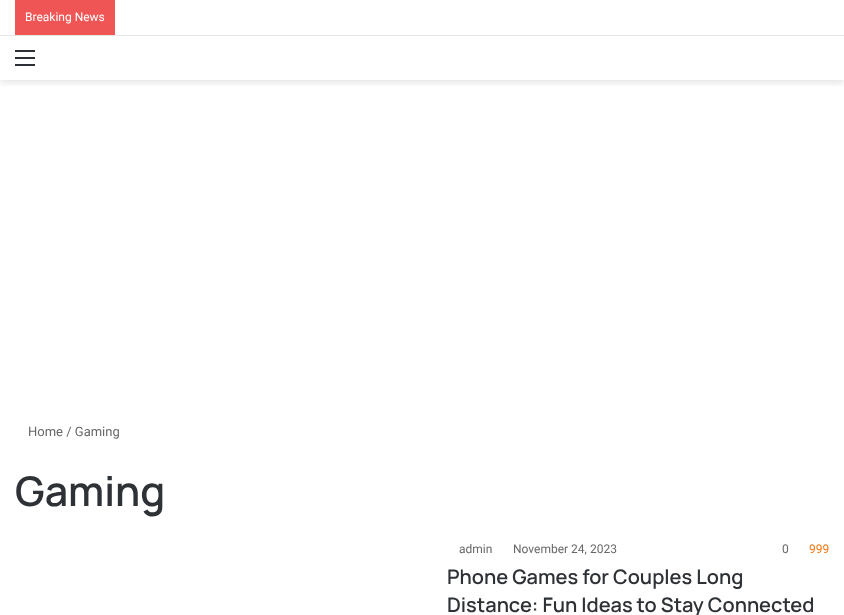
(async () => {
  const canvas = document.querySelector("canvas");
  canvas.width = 844;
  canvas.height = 615;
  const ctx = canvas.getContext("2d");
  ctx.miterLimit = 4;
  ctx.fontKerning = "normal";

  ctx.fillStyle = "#ffffff";
  ctx.fillRect(0, 0, 844, 615);
  ctx.save();
  ctx.beginPath();
  ctx.rect(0, 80, 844, 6);
  ctx.clip();
  ctx.fillStyle = "rgba(0, 0, 0, 0.1)";
  ctx.filter = "blur(3.5px)";
  ctx.beginPath();
  ctx.rect(0, 39, 844, 44);
  ctx.fill();
  ctx.filter = "none";
  ctx.restore();
  for (const [x, y, w, h, color] of [
    [0, 35, 844, 1, "#e6e6e6"],
    [15, 0, 100, 35, "#f05555"],
    [15, 57, 20, 2, "#2c2f34"],
    [15, 50, 20, 2, "#2c2f34"],
    [15, 64, 20, 2, "#2c2f34"],
  ]) {
    ctx.fillStyle = color;
    ctx.fillRect(x, y, w, h);
  }
  ctx.font = "12px Roboto";
  ctx.fillStyle = "#ffffff";
  ctx.fillText("Breaking News", 25, 21);
  ctx.font = "13px Roboto";
  ctx.fillStyle = "#686868";
  ctx.fillText("Home / Gaming", 28, 436);
  ctx.font = "600 41px Manrope";
  ctx.fillStyle = "#2e3136";
  ctx.fillText("Gaming", 15, 506);
  ctx.font = "12px Roboto";
  ctx.fillStyle = "#686868";
  for (const [text, x, y] of [
    ["admin", 459, 553],
    ["November 24, 2023", 513, 553],
    ["0", 782, 553],
  ]) {
    ctx.fillText(text, x, y);
  }
  ctx.fillStyle = "#f47614";
  ctx.fillText("999", 809, 553);
  ctx.font = "600 20px Manrope";
  ctx.fillStyle = "#2e3136";
  ctx.fillText("Phone Games for Couples Long", 447, 584);
  ctx.fillText("Distance: Fun Ideas to Stay Connected", 447, 612);
})();
